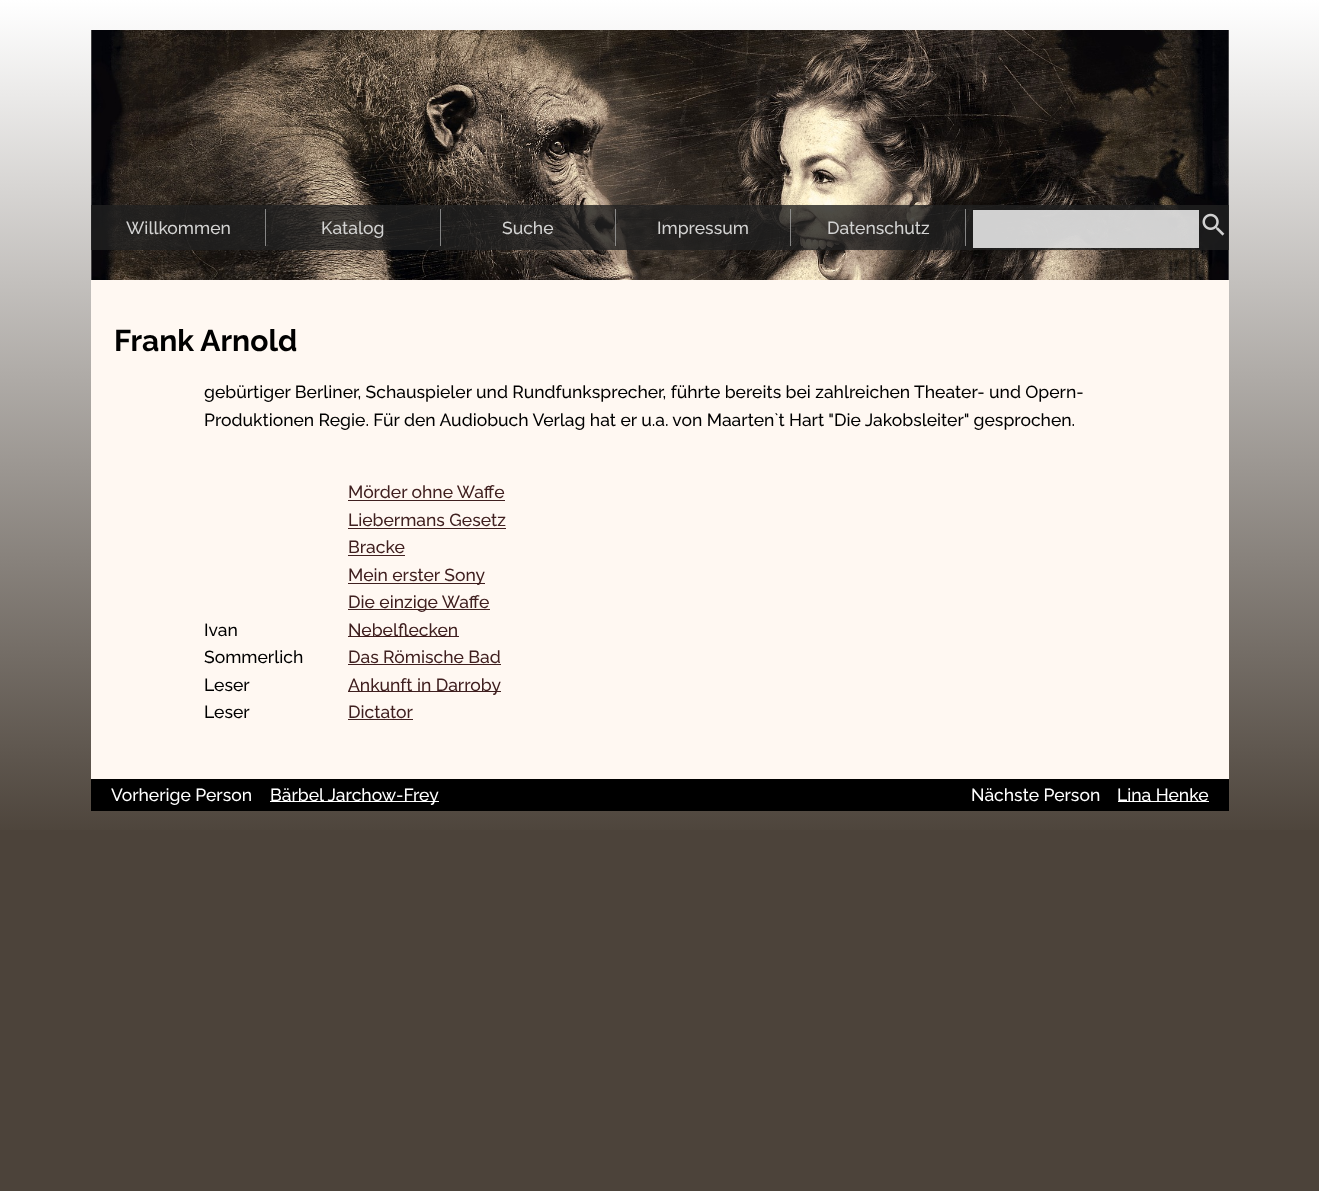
(async () => {
  const canvas = document.querySelector("canvas");
  canvas.width = 1319;
  canvas.height = 1191;
  const ctx = canvas.getContext("2d");
  ctx.miterLimit = 4;
  ctx.fontKerning = "normal";
  async function loadImage(src) {
    const img = new Image();
    img.src = src;
    await img.decode();
    return img;
  }
  let gradient;

  ctx.fillStyle = "#4c433a";
  ctx.fillRect(0, 0, 1319, 1191);
  gradient = ctx.createLinearGradient(660, 841, 660, 0);
  gradient.addColorStop(0, "#4c433a");
  gradient.addColorStop(1, "#ffffff");
  ctx.fillStyle = gradient;
  ctx.fillRect(0, 0, 1319, 830);
  ctx.fillStyle = "#fff8f2";
  ctx.fillRect(91, 30, 1138, 749);
  ctx.drawImage(await loadImage("img/1.png"), 91, 30, 1138, 250);
  for (const [x, y, w, h, color] of [
    [91, 205, 1138, 45, "rgba(32, 32, 32, 0.8)"],
    [265, 209, 1, 37, "rgba(160, 160, 160, 0.8)"],
    [440, 209, 1, 37, "rgba(160, 160, 160, 0.8)"],
    [615, 209, 1, 37, "rgba(160, 160, 160, 0.8)"],
    [790, 209, 1, 37, "rgba(160, 160, 160, 0.8)"],
    [965, 209, 1, 37, "rgba(160, 160, 160, 0.8)"],
    [973, 210, 226, 38, "rgba(255, 255, 255, 0.8)"],
  ]) {
    ctx.fillStyle = color;
    ctx.fillRect(x, y, w, h);
  }
  ctx.drawImage(await loadImage("img/2.png"), 1202, 213, 23, 23);
  for (const [x, y, w, h, color] of [
    [348, 500, 157, 1, "#402020"],
    [348, 528, 158, 1, "#402020"],
    [348, 555, 57, 1, "#402020"],
    [348, 583, 137, 1, "#402020"],
    [348, 609, 142, 1, "#402020"],
    [348, 636, 111, 1, "#402020"],
    [348, 664, 153, 1, "#402020"],
    [348, 691, 153, 1, "#402020"],
    [348, 719, 65, 1, "#402020"],
    [91, 779, 1138, 32, "#000000"],
    [270, 801, 169, 1, "#ffffff"],
    [1118, 801, 91, 1, "#ffffff"],
  ]) {
    ctx.fillStyle = color;
    ctx.fillRect(x, y, w, h);
  }
  ctx.font = "500 17.5px Raleway";
  ctx.fillStyle = "#d3d3d2";
  for (const [text, x, y] of [
    ["Willkommen", 126, 234],
    ["Katalog", 321, 234],
    ["Suche", 502, 234],
    ["Impressum", 657, 234],
    ["Datenschutz", 827, 234],
  ]) {
    ctx.fillText(text, x, y);
  }
  ctx.font = "bold 30px Raleway";
  ctx.fillStyle = "#000000";
  ctx.fillText("Frank Arnold", 114, 351);
  ctx.font = "500 17.5px Raleway";
  ctx.fillText("gebürtiger Berliner, Schauspieler und Rundfunksprecher, führte bereits bei zahlreichen Theater- und Opern-", 204, 398);
  ctx.fillText("Produktionen Regie. Für den Audiobuch Verlag hat er u.a. von Maarten`t Hart \"Die Jakobsleiter\" gesprochen.", 204, 426);
  ctx.fillStyle = "#402020";
  for (const [text, x, y] of [
    ["Mörder ohne Waffe", 348, 498],
    ["Liebermans Gesetz", 348, 526],
    ["Bracke", 348, 553],
    ["Mein erster Sony", 348, 581],
    ["Die einzige Waffe", 348, 608],
  ]) {
    ctx.fillText(text, x, y);
  }
  ctx.fillStyle = "#000000";
  ctx.fillText("Ivan", 204, 636);
  ctx.fillStyle = "#402020";
  ctx.fillText("Nebelflecken", 348, 636);
  ctx.fillStyle = "#000000";
  ctx.fillText("Sommerlich", 204, 663);
  ctx.fillStyle = "#402020";
  ctx.fillText("Das Römische Bad", 348, 663);
  ctx.fillStyle = "#000000";
  ctx.fillText("Leser", 204, 691);
  ctx.fillStyle = "#402020";
  ctx.fillText("Ankunft in Darroby", 348, 691);
  ctx.fillStyle = "#000000";
  ctx.fillText("Leser", 204, 718);
  ctx.fillStyle = "#402020";
  ctx.fillText("Dictator", 348, 718);
  ctx.fillStyle = "#ffffff";
  for (const [text, x, y] of [
    ["Vorherige Person", 111, 801],
    ["Bärbel Jarchow-Frey", 270, 801],
    ["Nächste Person", 971, 801],
    ["Lina Henke", 1117, 801],
  ]) {
    ctx.fillText(text, x, y);
  }
})();
